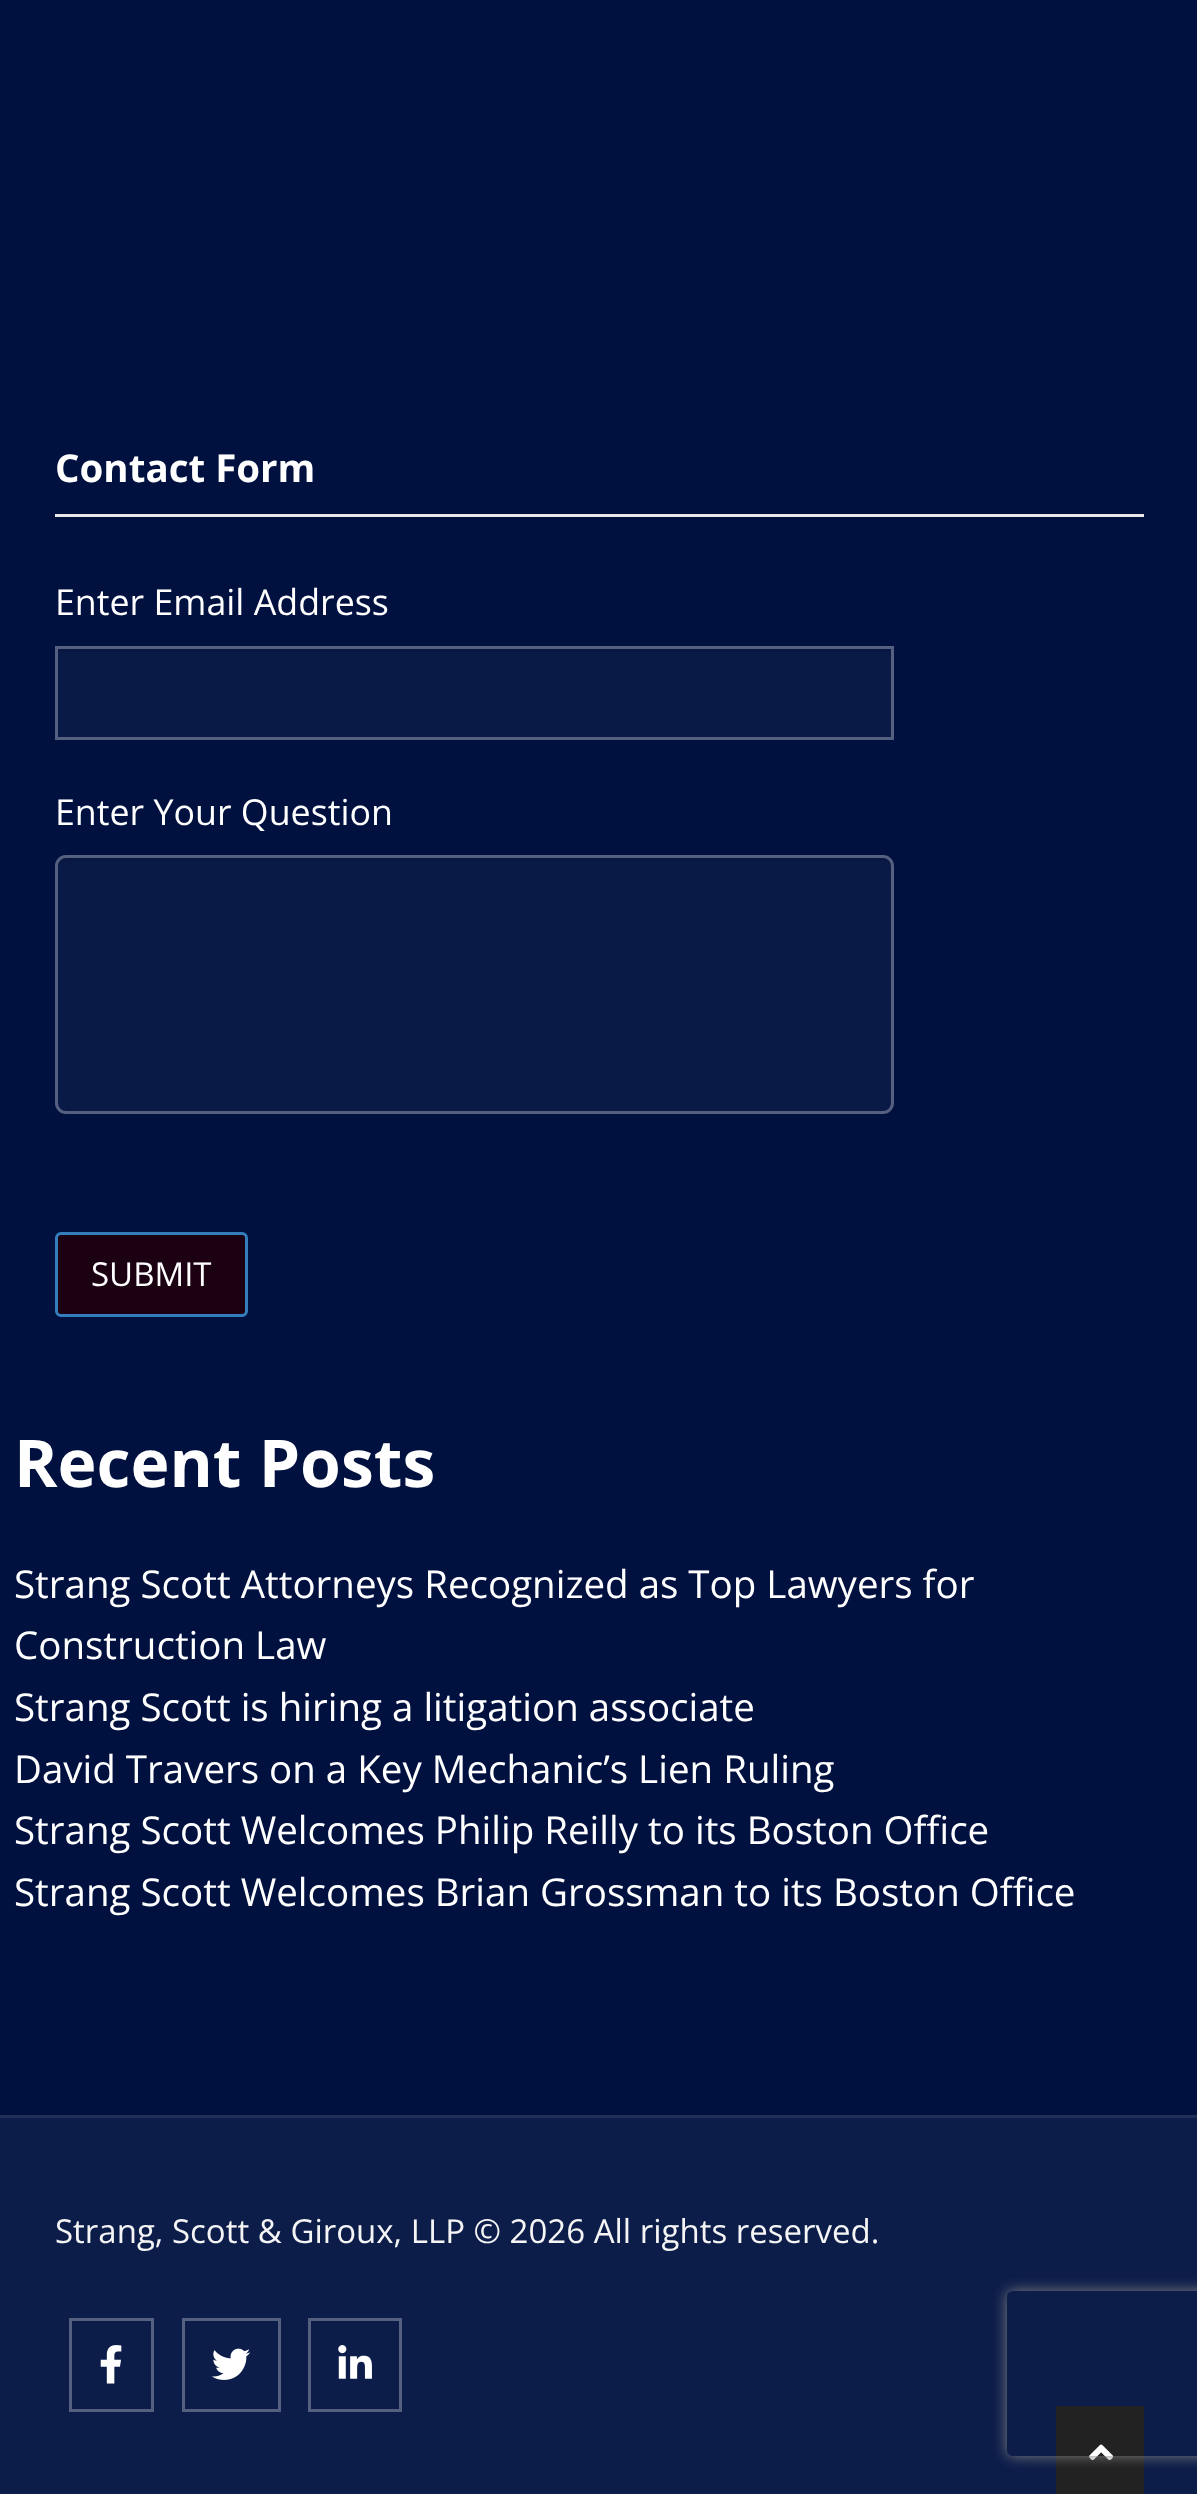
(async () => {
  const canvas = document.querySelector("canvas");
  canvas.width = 1197;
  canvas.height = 2494;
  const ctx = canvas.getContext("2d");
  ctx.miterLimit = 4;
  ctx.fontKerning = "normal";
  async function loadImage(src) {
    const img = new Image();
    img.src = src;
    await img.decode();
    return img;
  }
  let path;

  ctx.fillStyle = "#001140";
  ctx.fillRect(0, 0, 1197, 2494);
  for (const [x, y, w, h, color] of [
    [55, 514, 1089, 3, "#e9e9e9"],
    [58, 652, 833, 85, "#0a1a47"],
    [58, 649, 833, 3, "#091842"],
  ]) {
    ctx.fillStyle = color;
    ctx.fillRect(x, y, w, h);
  }
  ctx.strokeStyle = "#556080";
  ctx.lineWidth = 3;
  ctx.strokeRect(56.5, 647.5, 836, 91);
  ctx.fillStyle = "#0a1a47";
  ctx.beginPath();
  ctx.roundRect(55, 855, 839, 259, 11);
  ctx.fill();
  ctx.fillStyle = "#091842";
  path = new Path2D("M66 861H883C887 861 891 864 891 869C891 864 889 858 883 858H66C60 858 58 864 58 869C58 864 61 861 66 861Z");
  ctx.fill(path);
  ctx.beginPath();
  ctx.roundRect(56.5, 856.5, 836, 256, 9.5);
  ctx.stroke();
  ctx.fillStyle = "#1c0113";
  ctx.beginPath();
  ctx.roundRect(56.5, 1233.5, 190, 82, 4.5);
  ctx.fill();
  ctx.strokeStyle = "#357ebd";
  ctx.stroke();
  ctx.fillStyle = "#0d1d4a";
  ctx.fillRect(0, 2118, 1197, 376);
  ctx.fillStyle = "#202f58";
  ctx.fillRect(0, 2115, 1197, 3);
  ctx.strokeStyle = "#556080";
  ctx.strokeRect(70.5, 2319.5, 82, 91);
  ctx.drawImage(await loadImage("img/1.png"), 100, 2345, 22, 39);
  ctx.strokeRect(183.5, 2319.5, 96, 91);
  ctx.drawImage(await loadImage("img/2.png"), 211, 2348, 40, 32);
  ctx.strokeRect(309.5, 2319.5, 91, 91);
  ctx.drawImage(await loadImage("img/3.png"), 338, 2345, 34, 34);
  ctx.fillStyle = "#222222";
  ctx.fillRect(1056, 2406, 88, 88);
  ctx.drawImage(await loadImage("img/4.png"), 1089, 2444, 25, 16);
  ctx.save();
  path = new Path2D("M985 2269H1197V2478H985ZM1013 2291H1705C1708.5 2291 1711 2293.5 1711 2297V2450C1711 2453.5 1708.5 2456 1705 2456H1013C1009.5 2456 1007 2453.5 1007 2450V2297C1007 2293.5 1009.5 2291 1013 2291Z");
  ctx.clip(path, "evenodd");
  ctx.fillStyle = "#808080";
  ctx.filter = "blur(7px)";
  ctx.beginPath();
  ctx.roundRect(1007, 2291, 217, 165, 6);
  ctx.fill();
  ctx.filter = "none";
  ctx.restore();
  ctx.font = "bold 38.5px Open Sans";
  ctx.fillStyle = "#ffffff";
  ctx.fillText("Contact Form", 55, 482);
  ctx.font = "35.75px Open Sans";
  ctx.fillText("Enter Email Address", 55, 615);
  ctx.fillText("Enter Your Question", 55, 825);
  ctx.font = "33px Open Sans";
  ctx.fillText("SUBMIT", 91, 1286);
  ctx.font = "bold 66px Open Sans";
  ctx.fillText("Recent Posts", 14, 1487);
  ctx.font = "38.5px Open Sans";
  for (const [text, x, y] of [
    ["Strang Scott Attorneys Recognized as Top Lawyers for", 14, 1598],
    ["Construction Law", 14, 1659],
    ["Strang Scott is hiring a litigation associate", 14, 1721],
    ["David Travers on a Key Mechanic’s Lien Ruling", 14, 1783],
    ["Strang Scott Welcomes Philip Reilly to its Boston Office", 14, 1844],
    ["Strang Scott Welcomes Brian Grossman to its Boston Office", 14, 1906],
  ]) {
    ctx.fillText(text, x, y);
  }
  ctx.font = "33px Open Sans";
  ctx.fillStyle = "#f5f5f5";
  ctx.fillText("Strang, Scott & Giroux, LLP © 2026 All rights reserved.", 55, 2243);
})();
